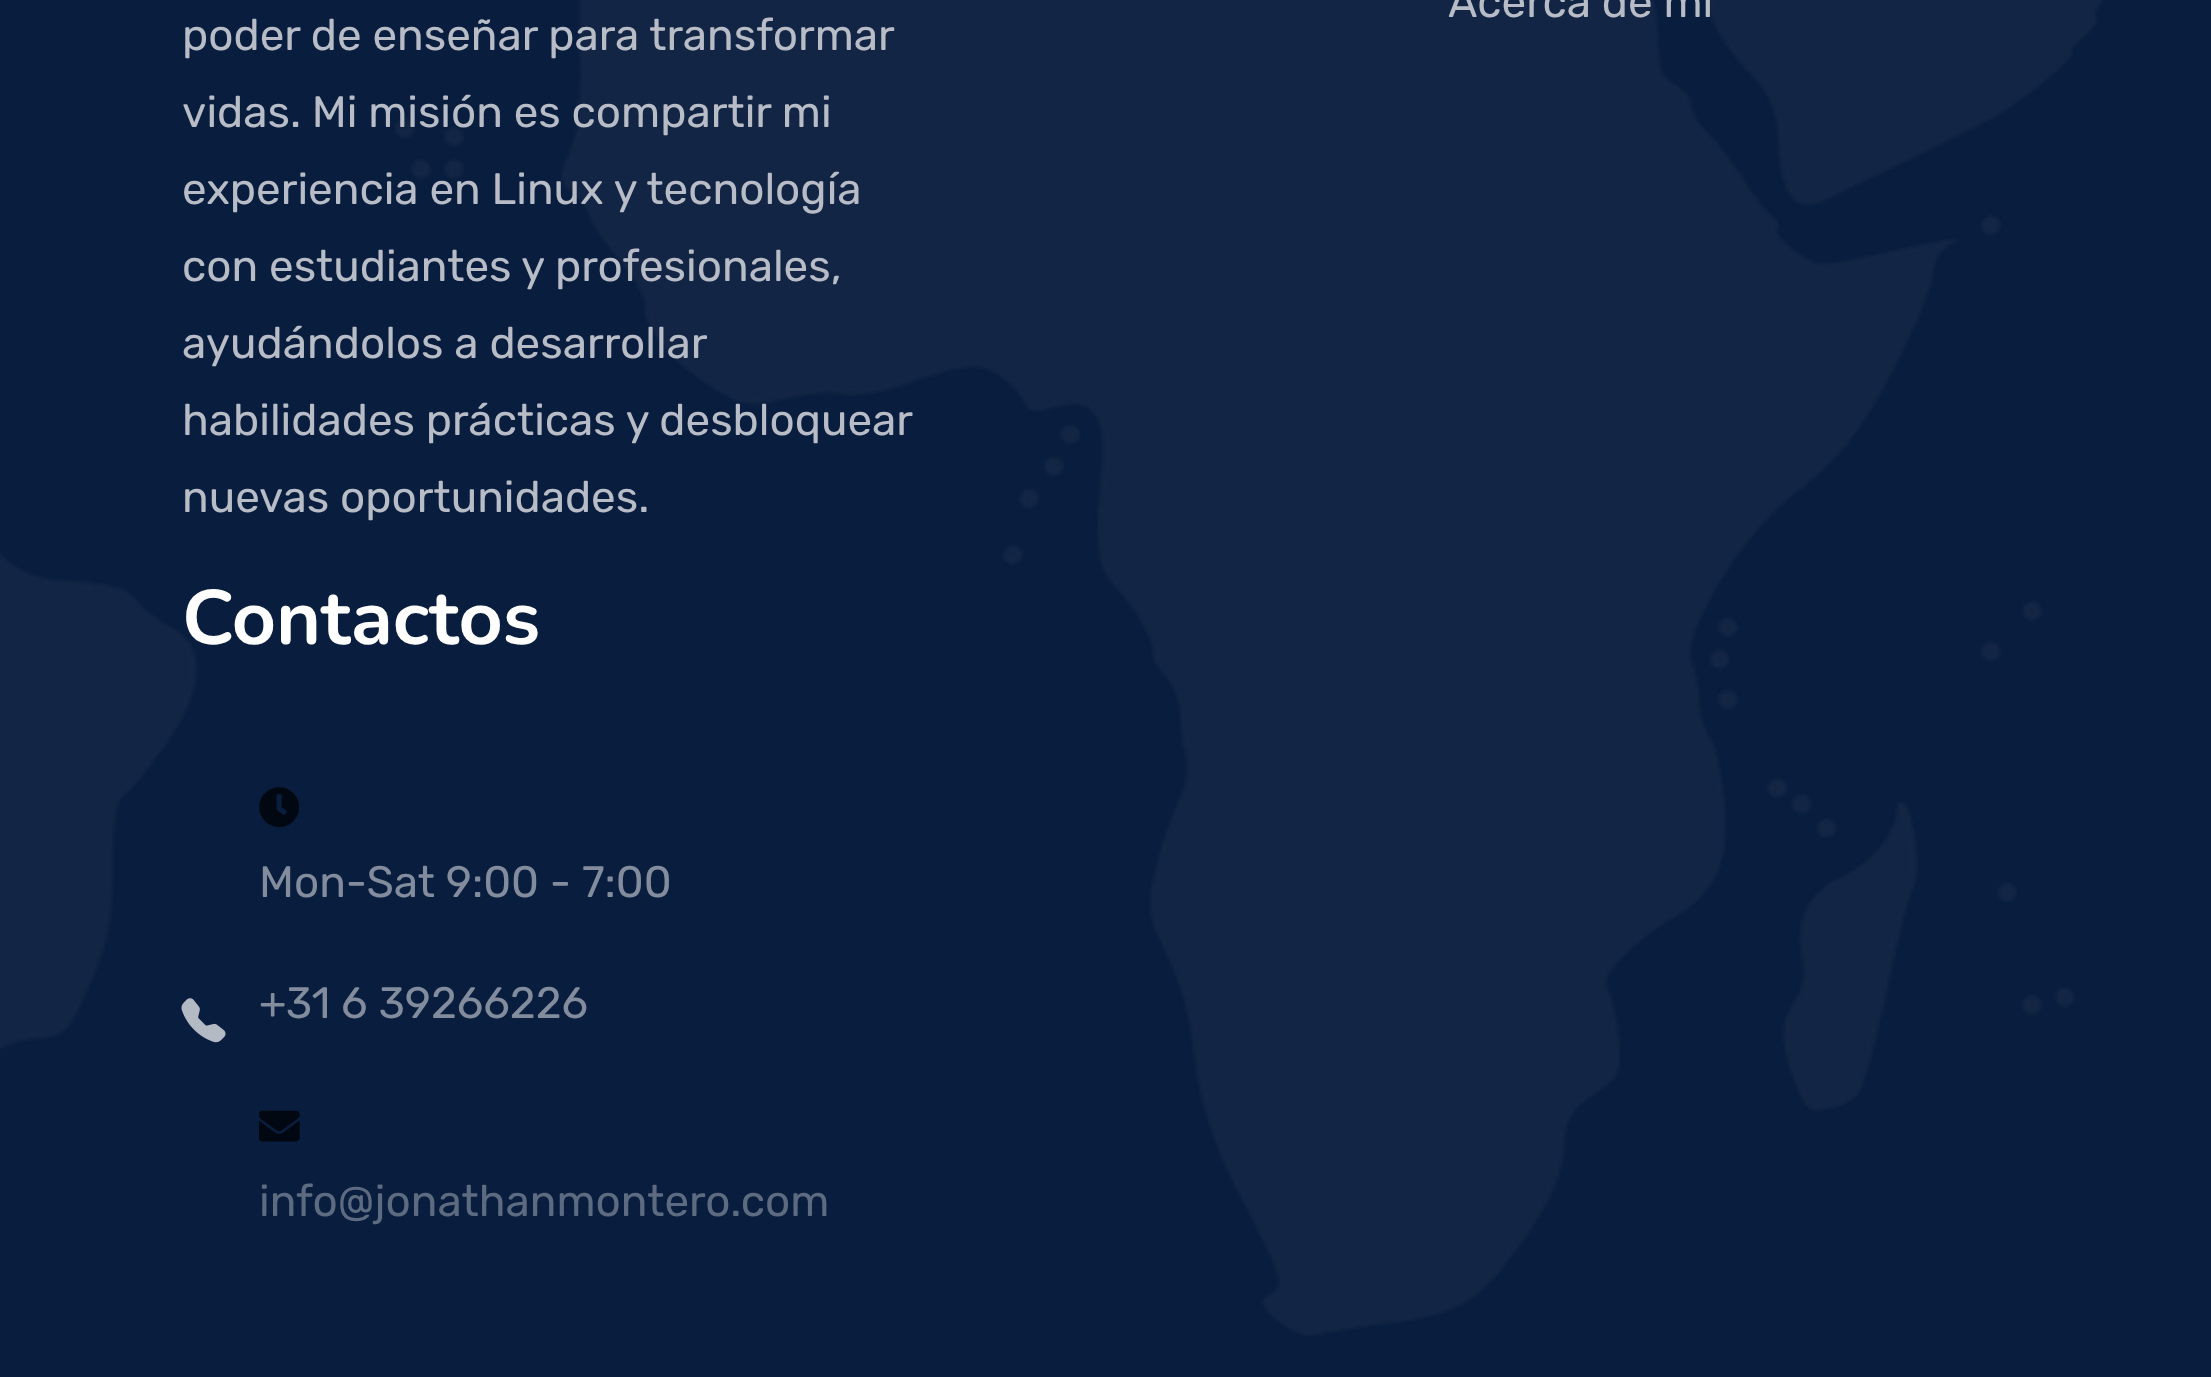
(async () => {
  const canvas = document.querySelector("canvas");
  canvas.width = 2211;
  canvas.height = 1377;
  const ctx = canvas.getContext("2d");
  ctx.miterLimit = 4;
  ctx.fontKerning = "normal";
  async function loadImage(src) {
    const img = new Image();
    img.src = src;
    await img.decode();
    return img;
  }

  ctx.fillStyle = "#091d3e";
  ctx.fillRect(0, 0, 2211, 1377);
  ctx.drawImage(await loadImage("img/1.png"), 0, 0, 2103, 1336);
  ctx.drawImage(await loadImage("img/2.png"), 259, 787, 40, 40);
  ctx.drawImage(await loadImage("img/3.png"), 181, 998, 45, 45);
  ctx.drawImage(await loadImage("img/4.png"), 259, 1110, 41, 32);
  ctx.font = "44px Rubik";
  ctx.fillStyle = "#b7bcc6";
  for (const [text, x, y] of [
    ["Acerca de mí", 1448, 17],
    ["poder de enseñar para transformar", 182, 50],
    ["vidas. Mi misión es compartir mi", 182, 127],
    ["experiencia en Linux y tecnología", 182, 204],
    ["con estudiantes y profesionales,", 182, 281],
    ["ayudándolos a desarrollar", 182, 358],
    ["habilidades prácticas y desbloquear", 182, 435],
    ["nuevas oportunidades.", 182, 512],
  ]) {
    ctx.fillText(text, x, y);
  }
  ctx.font = "bold 77px Nunito";
  ctx.fillStyle = "#ffffff";
  ctx.fillText("Contactos", 182, 644);
  ctx.font = "44px Rubik";
  ctx.fillStyle = "#828c9d";
  ctx.fillText("Mon-Sat 9:00 - 7:00", 259, 897);
  ctx.fillText("+31 6 39266226", 259, 1018);
  ctx.fillStyle = "#5d6b80";
  ctx.fillText("info@jonathanmontero.com", 259, 1216);
})();
